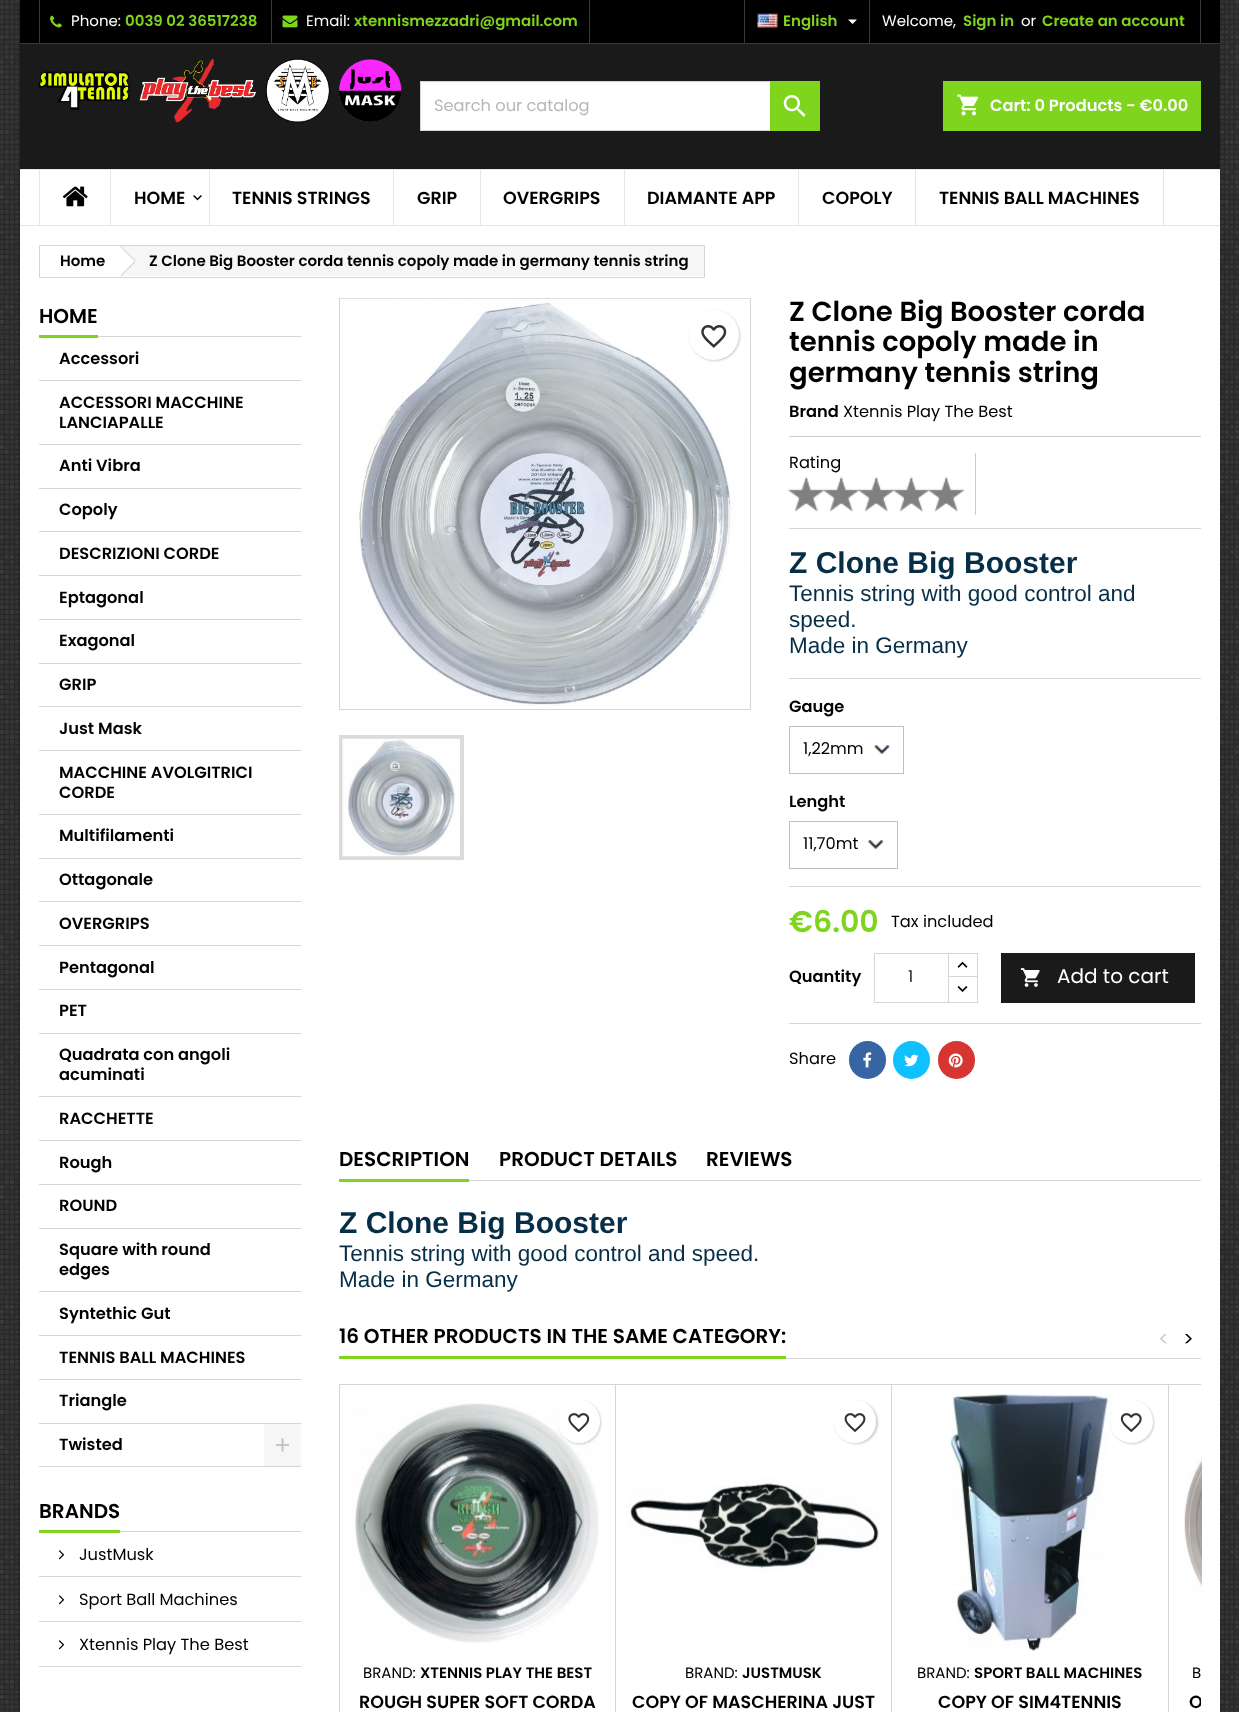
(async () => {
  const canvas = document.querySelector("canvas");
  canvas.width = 1239;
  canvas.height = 1712;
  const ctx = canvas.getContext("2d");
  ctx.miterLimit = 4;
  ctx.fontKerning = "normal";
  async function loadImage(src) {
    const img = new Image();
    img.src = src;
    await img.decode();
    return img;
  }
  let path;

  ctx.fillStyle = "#ffffff";
  ctx.fillRect(0, 0, 1239, 1712);
  ctx.drawImage(await loadImage("img/1.png"), 0, 0, 1239, 1712);
  ctx.fillStyle = "rgba(0, 0, 0, 0.2)";
  ctx.filter = "blur(2.5px)";
  ctx.beginPath();
  ctx.rect(20, 0, 1200, 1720);
  ctx.fill();
  ctx.filter = "none";
  for (const [x, y, w, h, color] of [
    [20, 170, 1200, 1542, "#ffffff"],
    [20, 0, 1200, 43, "#000000"],
    [20, 43, 1200, 1, "#383838"],
    [39, 0, 1, 43, "#383838"],
  ]) {
    ctx.fillStyle = color;
    ctx.fillRect(x, y, w, h);
  }
  ctx.drawImage(await loadImage("img/2.png"), 50, 15, 12, 13);
  ctx.fillRect(589, 0, 1, 43);
  ctx.fillRect(271, 0, 1, 43);
  ctx.drawImage(await loadImage("img/3.png"), 282, 15, 16, 13);
  ctx.fillRect(744, 0, 1, 43);
  ctx.drawImage(await loadImage("img/4.png"), 757, 13, 21, 15);
  ctx.fillStyle = "#ffffff";
  path = new Path2D("M848 19.5H857L852.5 24Z");
  ctx.fill(path);
  for (const [x, y, w, h, color] of [
    [1200, 0, 1, 43, "#383838"],
    [869, 0, 1, 43, "#383838"],
    [20, 44, 1200, 125, "#1b1a1b"],
  ]) {
    ctx.fillStyle = color;
    ctx.fillRect(x, y, w, h);
  }
  ctx.drawImage(await loadImage("img/5.png"), 38, 58, 364, 65);
  ctx.fillStyle = "#ffffff";
  ctx.fillRect(421, 82, 349, 48);
  ctx.strokeStyle = "#d6d4d4";
  ctx.strokeRect(420.5, 81.5, 399, 49);
  ctx.fillStyle = "#7fd41d";
  ctx.fillRect(770, 81, 50, 50);
  ctx.drawImage(await loadImage("img/6.png"), 783, 95, 23, 22);
  ctx.fillRect(943, 81, 258, 50);
  ctx.drawImage(await loadImage("img/7.png"), 957, 94, 22, 22);
  for (const [x, y, w, h, color] of [
    [20, 169, 1200, 1, "#e6e6e6"],
    [20, 225, 1200, 1, "#e6e6e6"],
    [39, 170, 1, 55, "#e6e6e6"],
  ]) {
    ctx.fillStyle = color;
    ctx.fillRect(x, y, w, h);
  }
  ctx.drawImage(await loadImage("img/8.png"), 62, 186, 26, 21);
  ctx.fillRect(110, 170, 1, 55);
  ctx.drawImage(await loadImage("img/9.png"), 193, 195, 9, 6);
  for (const [x, y, w, h, color] of [
    [209, 170, 1, 55, "#e6e6e6"],
    [393, 170, 1, 55, "#e6e6e6"],
    [480, 170, 1, 55, "#e6e6e6"],
    [624, 170, 1, 55, "#e6e6e6"],
    [798, 170, 1, 55, "#e6e6e6"],
    [1163, 170, 1, 55, "#e6e6e6"],
    [915, 170, 1, 55, "#e6e6e6"],
  ]) {
    ctx.fillStyle = color;
    ctx.fillRect(x, y, w, h);
  }
  ctx.strokeRect(39.5, 245.5, 665, 32);
  ctx.fillStyle = "#f6f6f6";
  ctx.fillRect(121, 246, 583, 30);
  ctx.fillStyle = "#ffffff";
  path = new Path2D("M122 247L134.5 259.5C135.5 260.5 135.5 262 134.5 263L122 275.5C121 276.5 119.5 276.5 118.5 275.5L106 263C105 262 105 260.5 106 259.5L118.5 247C119.5 246 121 246 122 247Z");
  ctx.fill(path);
  ctx.fillStyle = "#d6d4d4";
  path = new Path2D("M121 246L135.5 260.5L134.5 261L120.5 247ZM134.5 261L135.5 262L121 276.5L120.5 275.5Z");
  ctx.fill(path);
  for (const [x, y, w, h, color] of [
    [98, 336, 203, 1, "#d6d4d4"],
    [39, 335, 59, 3, "#7fd41d"],
    [39, 380, 262, 1, "#d6d4d4"],
    [39, 444, 262, 1, "#d6d4d4"],
    [39, 488, 262, 1, "#d6d4d4"],
    [39, 531, 262, 1, "#d6d4d4"],
    [39, 575, 262, 1, "#d6d4d4"],
    [39, 619, 262, 1, "#d6d4d4"],
    [39, 663, 262, 1, "#d6d4d4"],
    [39, 706, 262, 1, "#d6d4d4"],
    [39, 750, 262, 1, "#d6d4d4"],
    [39, 814, 262, 1, "#d6d4d4"],
    [39, 858, 262, 1, "#d6d4d4"],
    [39, 901, 262, 1, "#d6d4d4"],
    [39, 945, 262, 1, "#d6d4d4"],
    [39, 989, 262, 1, "#d6d4d4"],
    [39, 1033, 262, 1, "#d6d4d4"],
    [39, 1096, 262, 1, "#d6d4d4"],
    [39, 1140, 262, 1, "#d6d4d4"],
    [39, 1184, 262, 1, "#d6d4d4"],
    [39, 1228, 262, 1, "#d6d4d4"],
    [39, 1291, 262, 1, "#d6d4d4"],
    [39, 1335, 262, 1, "#d6d4d4"],
    [39, 1379, 262, 1, "#d6d4d4"],
    [39, 1423, 262, 1, "#d6d4d4"],
    [39, 1466, 262, 1, "#d6d4d4"],
    [264, 1424, 37, 42, "#f6f6f6"],
  ]) {
    ctx.fillStyle = color;
    ctx.fillRect(x, y, w, h);
  }
  ctx.drawImage(await loadImage("img/10.png"), 276, 1438, 13, 14);
  for (const [x, y, w, h, color] of [
    [120, 1531, 181, 1, "#d6d4d4"],
    [39, 1530, 81, 3, "#7fd41d"],
    [39, 1576, 262, 1, "#d6d4d4"],
  ]) {
    ctx.fillStyle = color;
    ctx.fillRect(x, y, w, h);
  }
  ctx.drawImage(await loadImage("img/11.png"), 58, 1550, 7, 10);
  ctx.fillRect(39, 1621, 262, 1);
  ctx.drawImage(await loadImage("img/11.png"), 58, 1595, 7, 10);
  ctx.fillRect(39, 1666, 262, 1);
  ctx.drawImage(await loadImage("img/11.png"), 58, 1640, 7, 10);
  ctx.strokeRect(339.5, 298.5, 411, 411);
  ctx.drawImage(await loadImage("img/12.png"), 340, 298, 410, 408);
  ctx.strokeStyle = "#dbdbdb";
  ctx.lineWidth = 4;
  ctx.strokeRect(341, 737, 121, 121);
  ctx.drawImage(await loadImage("img/13.png"), 342, 738, 118, 119);
  ctx.fillStyle = "rgba(0, 0, 0, 0.2)";
  ctx.filter = "blur(1px)";
  ctx.beginPath();
  ctx.roundRect(690, 311, 50, 50, 25);
  ctx.fill();
  ctx.filter = "none";
  ctx.fillStyle = "#ffffff";
  ctx.beginPath();
  ctx.arc(714, 335, 25, 0, Math.PI * 2);
  ctx.fill();
  ctx.drawImage(await loadImage("img/14.png"), 701, 325, 26, 23);
  ctx.fillStyle = "#cccccc";
  ctx.fillRect(789, 436, 412, 1);
  ctx.fillRect(975, 453, 1, 62);
  ctx.drawImage(await loadImage("img/15.png"), 787, 476, 38, 36);
  ctx.drawImage(await loadImage("img/16.png"), 823, 476, 37, 36);
  ctx.drawImage(await loadImage("img/16.png"), 858, 476, 37, 36);
  ctx.drawImage(await loadImage("img/16.png"), 893, 476, 37, 36);
  ctx.drawImage(await loadImage("img/16.png"), 928, 476, 37, 36);
  ctx.fillStyle = "#d6d4d4";
  ctx.fillRect(789, 528, 412, 1);
  ctx.fillRect(789, 678, 412, 1);
  ctx.drawImage(await loadImage("img/17.png"), 873, 745, 18, 9);
  ctx.strokeStyle = "#bfbfbf";
  ctx.lineWidth = 1;
  ctx.strokeRect(789.5, 726.5, 114, 47);
  ctx.drawImage(await loadImage("img/18.png"), 867, 840, 17, 9);
  ctx.strokeRect(789.5, 821.5, 108, 47);
  ctx.fillRect(789, 886, 412, 1);
  ctx.strokeStyle = "#d6d4d4";
  ctx.strokeRect(948.5, 953.5, 29, 25);
  ctx.fillStyle = "#ffffff";
  ctx.fillRect(949, 978, 28, 1);
  ctx.strokeRect(948.5, 976.5, 29, 26);
  ctx.strokeRect(874.5, 953.5, 74, 49);
  ctx.drawImage(await loadImage("img/19.png"), 957, 961, 11, 7);
  ctx.drawImage(await loadImage("img/20.png"), 957, 986, 11, 6);
  ctx.fillStyle = "#1b1a1b";
  ctx.fillRect(1001, 953, 194, 50);
  ctx.drawImage(await loadImage("img/21.png"), 1020, 968, 20, 19);
  ctx.fillStyle = "#d6d4d4";
  ctx.fillRect(789, 1023, 412, 1);
  ctx.fillStyle = "#3765a3";
  ctx.beginPath();
  ctx.roundRect(849, 1041, 37, 38, 18.5);
  ctx.fill();
  ctx.drawImage(await loadImage("img/22.png"), 863, 1052, 9, 16);
  ctx.fillStyle = "#11c1ff";
  ctx.beginPath();
  ctx.roundRect(893, 1041, 37, 38, 18.5);
  ctx.fill();
  ctx.drawImage(await loadImage("img/23.png"), 904, 1054, 15, 13);
  ctx.fillStyle = "#d73532";
  ctx.beginPath();
  ctx.roundRect(938, 1041, 37, 38, 18.5);
  ctx.fill();
  ctx.drawImage(await loadImage("img/24.png"), 948, 1053, 15, 15);
  for (const [x, y, w, h, color] of [
    [469, 1180, 732, 1, "#d6d4d4"],
    [339, 1179, 130, 3, "#7fd41d"],
    [786, 1358, 415, 1, "#d6d4d4"],
    [339, 1356, 447, 3, "#7fd41d"],
  ]) {
    ctx.fillStyle = color;
    ctx.fillRect(x, y, w, h);
  }
  ctx.strokeRect(339.5, 1384.5, 276, 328);
  ctx.drawImage(await loadImage("img/26.png"), 351, 1403, 248, 240);
  ctx.fillStyle = "rgba(0, 0, 0, 0.2)";
  ctx.filter = "blur(1px)";
  ctx.beginPath();
  ctx.roundRect(559, 1401, 42, 43, 21);
  ctx.fill();
  ctx.filter = "none";
  ctx.fillStyle = "#ffffff";
  ctx.beginPath();
  ctx.roundRect(558, 1400, 42, 43, 21);
  ctx.fill();
  ctx.drawImage(await loadImage("img/25.png"), 568, 1413, 22, 20);
  ctx.strokeRect(615.5, 1384.5, 277, 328);
  ctx.fillStyle = "rgba(0, 0, 0, 0.2)";
  ctx.filter = "blur(1px)";
  ctx.beginPath();
  ctx.roundRect(835, 1401, 43, 43, 21.5);
  ctx.fill();
  ctx.filter = "none";
  ctx.fillStyle = "#ffffff";
  ctx.beginPath();
  ctx.roundRect(834, 1400, 42, 43, 21);
  ctx.fill();
  ctx.drawImage(await loadImage("img/27.png"), 844, 1413, 22, 20);
  ctx.drawImage(await loadImage("img/28.png"), 627, 1477, 252, 95);
  ctx.fillRect(892, 1385, 1, 327);
  ctx.strokeRect(891.5, 1384.5, 277, 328);
  ctx.drawImage(await loadImage("img/29.png"), 951, 1394, 163, 257);
  ctx.fillStyle = "rgba(0, 0, 0, 0.2)";
  ctx.filter = "blur(1px)";
  ctx.beginPath();
  ctx.roundRect(1111, 1401, 43, 43, 21.5);
  ctx.fill();
  ctx.filter = "none";
  ctx.fillStyle = "#ffffff";
  ctx.beginPath();
  ctx.arc(1131.5, 1421.5, 21.5, 0, Math.PI * 2);
  ctx.fill();
  ctx.drawImage(await loadImage("img/30.png"), 1120, 1413, 22, 20);
  ctx.save();
  ctx.beginPath();
  ctx.rect(339, 1384, 862, 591);
  ctx.clip();
  ctx.strokeRect(1168.5, 1384.5, 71, 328);
  ctx.restore();
  ctx.drawImage(await loadImage("img/31.png"), 1183, 1458, 19, 133);
  ctx.font = "15px Poppins";
  ctx.fillText("Phone:", 71, 26);
  ctx.font = "600 15px Poppins";
  ctx.fillStyle = "#7fd41d";
  ctx.fillText("0039 02 36517238", 125, 26);
  ctx.font = "15px Poppins";
  ctx.fillStyle = "#ffffff";
  ctx.fillText("Email:", 306, 26);
  ctx.font = "600 15px Poppins";
  ctx.fillStyle = "#7fd41d";
  ctx.fillText("xtennismezzadri@gmail.com", 354, 26);
  ctx.fillText("English", 783, 26);
  ctx.font = "15px Poppins";
  ctx.fillStyle = "#ffffff";
  ctx.fillText("Welcome,", 882, 26);
  ctx.font = "600 15px Poppins";
  ctx.fillStyle = "#7fd41d";
  ctx.fillText("Sign in", 963, 26);
  ctx.font = "15px Poppins";
  ctx.fillStyle = "#ffffff";
  ctx.fillText("or", 1021, 26);
  ctx.font = "600 15px Poppins";
  ctx.fillStyle = "#7fd41d";
  ctx.fillText("Create an account", 1042, 26);
  ctx.font = "16.25px Poppins";
  ctx.fillStyle = "#b7b7b7";
  ctx.fillText("Search our catalog", 434, 111);
  ctx.font = "600 16.25px Poppins";
  ctx.fillStyle = "#ffffff";
  ctx.fillText("Cart: 0 Products - €0.00", 990, 111);
  ctx.font = "600 17.5px Poppins";
  ctx.fillStyle = "#000000";
  for (const [text, x, y] of [
    ["HOME", 134, 204],
    ["TENNIS STRINGS", 232, 204],
    ["GRIP", 417, 204],
    ["OVERGRIPS", 503, 204],
    ["DIAMANTE APP", 647, 204],
    ["COPOLY", 822, 204],
    ["TENNIS BALL MACHINES", 939, 204],
  ]) {
    ctx.fillText(text, x, y);
  }
  ctx.font = "600 15px Poppins";
  ctx.fillText("Home", 60, 266);
  ctx.fillText("Z Clone Big Booster corda tennis copoly made in germany tennis string", 149, 266);
  ctx.font = "600 20px Poppins";
  ctx.fillText("HOME", 39, 323);
  ctx.font = "600 16.25px Poppins";
  for (const [text, x, y] of [
    ["Accessori", 59, 364],
    ["ACCESSORI MACCHINE", 59, 408],
    ["LANCIAPALLE", 59, 428],
    ["Anti Vibra", 59, 471],
    ["Copoly", 59, 515],
    ["DESCRIZIONI CORDE", 59, 559],
    ["Eptagonal", 59, 603],
    ["Exagonal", 59, 646],
    ["GRIP", 59, 690],
    ["Just Mask", 59, 734],
    ["MACCHINE AVOLGITRICI", 59, 778],
    ["CORDE", 59, 798],
    ["Multifilamenti", 59, 841],
    ["Ottagonale", 59, 885],
    ["OVERGRIPS", 59, 929],
    ["Pentagonal", 59, 973],
    ["PET", 59, 1016],
    ["Quadrata con angoli", 59, 1060],
    ["acuminati", 59, 1080],
    ["RACCHETTE", 59, 1124],
    ["Rough", 59, 1168],
    ["ROUND", 59, 1211],
    ["Square with round", 59, 1255],
    ["edges", 59, 1275],
    ["Syntethic Gut", 59, 1319],
    ["TENNIS BALL MACHINES", 59, 1363],
    ["Triangle", 59, 1406],
    ["Twisted", 59, 1450],
  ]) {
    ctx.fillText(text, x, y);
  }
  ctx.font = "600 20px Poppins";
  ctx.fillText("BRANDS", 39, 1518);
  ctx.font = "16.25px Poppins";
  for (const [text, x, y] of [
    ["JustMusk", 79, 1560],
    ["Sport Ball Machines", 79, 1605],
    ["Xtennis Play The Best", 79, 1650],
  ]) {
    ctx.fillText(text, x, y);
  }
  ctx.font = "600 27.5px Poppins";
  for (const [text, x, y] of [
    ["Z Clone Big Booster corda", 789, 321],
    ["tennis copoly made in", 789, 351],
    ["germany tennis string", 789, 382],
  ]) {
    ctx.fillText(text, x, y);
  }
  ctx.font = "600 16.25px Poppins";
  ctx.fillText("Brand", 789, 417);
  ctx.font = "16.25px Poppins";
  ctx.fillText("Xtennis Play The Best", 843, 417);
  ctx.fillText("Rating", 789, 468);
  ctx.font = "bold 30px Liberation Sans";
  ctx.fillStyle = "#062e47";
  ctx.fillText("Z Clone Big Booster", 789, 573);
  ctx.font = "22.5px Liberation Sans";
  for (const [text, x, y] of [
    ["Tennis string with good control and", 789, 601],
    ["speed.", 789, 627],
    ["Made in Germany", 789, 653],
  ]) {
    ctx.fillText(text, x, y);
  }
  ctx.font = "600 16.25px Poppins";
  ctx.fillStyle = "#000000";
  ctx.fillText("Gauge", 789, 712);
  ctx.font = "16.25px Poppins";
  ctx.fillText("1,22mm", 803, 754);
  ctx.font = "600 16.25px Poppins";
  ctx.fillText("Lenght", 789, 807);
  ctx.font = "16.25px Poppins";
  ctx.fillText("11,70mt", 803, 849);
  ctx.font = "600 30px Poppins";
  ctx.fillStyle = "#7fd41d";
  ctx.fillText("€6.00", 789, 932);
  ctx.font = "16.25px Poppins";
  ctx.fillStyle = "#000000";
  ctx.fillText("Tax included", 891, 927);
  ctx.font = "600 16.25px Poppins";
  ctx.fillText("Quantity", 789, 982);
  ctx.font = "16.25px Poppins";
  ctx.fillStyle = "#232323";
  ctx.fillText("1", 908, 982);
  ctx.font = "20px Poppins";
  ctx.fillStyle = "#ffffff";
  ctx.fillText("Add to cart", 1057, 983);
  ctx.font = "16.25px Poppins";
  ctx.fillStyle = "#000000";
  ctx.fillText("Share", 789, 1064);
  ctx.font = "600 20px Poppins";
  for (const [text, x, y] of [
    ["DESCRIPTION", 339, 1166],
    ["PRODUCT DETAILS", 499, 1166],
    ["REVIEWS", 706, 1166],
  ]) {
    ctx.fillText(text, x, y);
  }
  ctx.font = "bold 30px Liberation Sans";
  ctx.fillStyle = "#062e47";
  ctx.fillText("Z Clone Big Booster", 339, 1233);
  ctx.font = "22.5px Liberation Sans";
  ctx.fillText("Tennis string with good control and speed.", 339, 1261);
  ctx.fillText("Made in Germany", 339, 1287);
  ctx.font = "600 20px Poppins";
  ctx.fillStyle = "#000000";
  ctx.fillText("16 OTHER PRODUCTS IN THE SAME CATEGORY:", 339, 1343);
  ctx.font = "20px Poppins";
  ctx.fillStyle = "#cccccc";
  ctx.fillText("<", 1158, 1346);
  ctx.fillStyle = "#000000";
  ctx.fillText(">", 1183, 1346);
  ctx.font = "15px Poppins";
  ctx.fillText("BRAND:", 363, 1678);
  ctx.font = "600 15px Poppins";
  ctx.fillText("XTENNIS PLAY THE BEST", 420, 1678);
  ctx.font = "600 17.5px Poppins";
  ctx.fillText("ROUGH SUPER SOFT CORDA", 359, 1708);
  ctx.font = "15px Poppins";
  ctx.fillText("BRAND:", 685, 1678);
  ctx.font = "600 15px Poppins";
  ctx.fillText("JUSTMUSK", 742, 1678);
  ctx.font = "600 17.5px Poppins";
  ctx.fillText("COPY OF MASCHERINA JUST", 632, 1708);
  ctx.font = "15px Poppins";
  ctx.fillText("BRAND:", 917, 1678);
  ctx.font = "600 15px Poppins";
  ctx.fillText("SPORT BALL MACHINES", 974, 1678);
  ctx.font = "600 17.5px Poppins";
  ctx.fillText("COPY OF SIM4TENNIS", 938, 1708);
  ctx.font = "15px Poppins";
  ctx.fillText("B", 1192, 1678);
  ctx.save();
  ctx.beginPath();
  ctx.rect(1179, 1693, 22, 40);
  ctx.clip();
  ctx.font = "600 17.5px Poppins";
  ctx.fillText("O", 1189, 1708);
  ctx.restore();
})();
